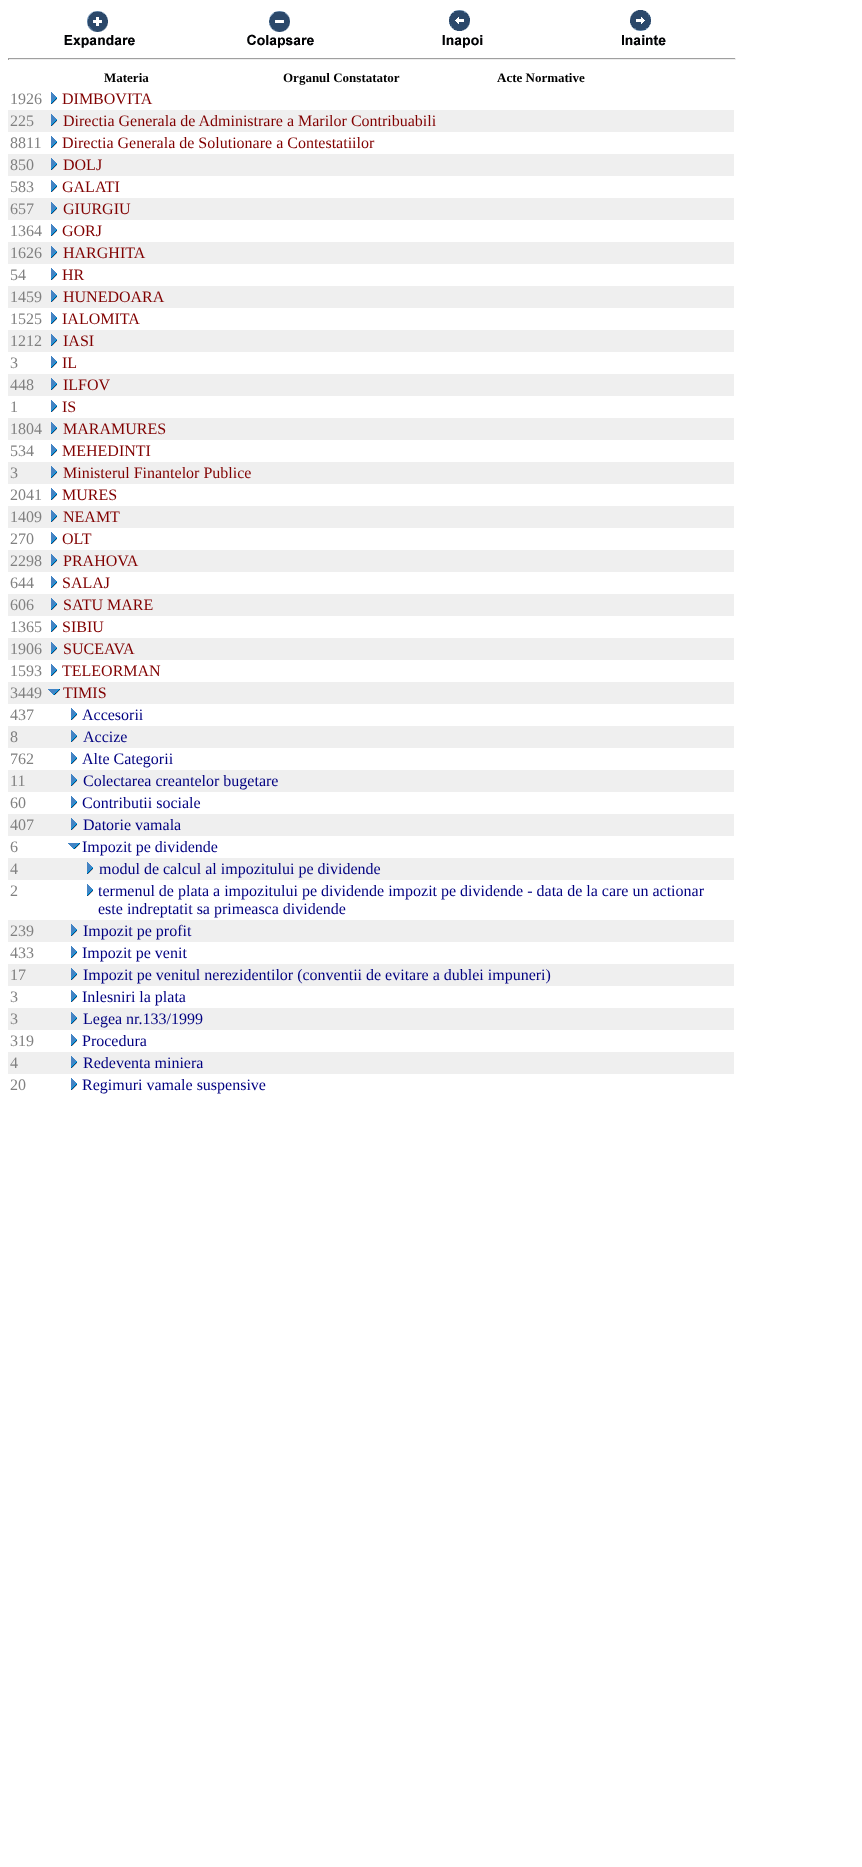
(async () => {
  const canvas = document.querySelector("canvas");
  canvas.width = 862;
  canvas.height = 1867;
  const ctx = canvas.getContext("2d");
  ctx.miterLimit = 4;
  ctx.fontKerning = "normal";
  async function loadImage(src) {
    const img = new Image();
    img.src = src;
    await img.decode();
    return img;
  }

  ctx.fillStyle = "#ffffff";
  ctx.fillRect(0, 0, 862, 1867);
  ctx.drawImage(await loadImage("img/1.png"), 64, 11, 71, 37);
  ctx.drawImage(await loadImage("img/2.png"), 247, 11, 67, 37);
  ctx.drawImage(await loadImage("img/3.png"), 442, 10, 41, 38);
  ctx.drawImage(await loadImage("img/4.png"), 622, 10, 44, 36);
  for (const [x, y, w, h, color] of [
    [8, 58, 728, 1, "#9f9f9f"],
    [735, 58, 1, 2, "#eeeeee"],
    [8, 59, 728, 1, "#eeeeee"],
    [8, 58, 1, 2, "#9f9f9f"],
  ]) {
    ctx.fillStyle = color;
    ctx.fillRect(x, y, w, h);
  }
  ctx.drawImage(await loadImage("img/5.png"), 51, 92, 6, 12);
  ctx.fillStyle = "#efefef";
  ctx.fillRect(8, 110, 726, 22);
  ctx.drawImage(await loadImage("img/6.png"), 51, 114, 6, 12);
  ctx.drawImage(await loadImage("img/5.png"), 51, 136, 6, 12);
  ctx.fillRect(8, 154, 726, 22);
  ctx.drawImage(await loadImage("img/6.png"), 51, 158, 6, 12);
  ctx.drawImage(await loadImage("img/5.png"), 51, 180, 6, 12);
  ctx.fillRect(8, 198, 726, 22);
  ctx.drawImage(await loadImage("img/6.png"), 51, 202, 6, 12);
  ctx.drawImage(await loadImage("img/5.png"), 51, 224, 6, 12);
  ctx.fillRect(8, 242, 726, 22);
  ctx.drawImage(await loadImage("img/6.png"), 51, 246, 6, 12);
  ctx.drawImage(await loadImage("img/5.png"), 51, 268, 6, 12);
  ctx.fillRect(8, 286, 726, 22);
  ctx.drawImage(await loadImage("img/6.png"), 51, 290, 6, 12);
  ctx.drawImage(await loadImage("img/5.png"), 51, 312, 6, 12);
  ctx.fillRect(8, 330, 726, 22);
  ctx.drawImage(await loadImage("img/6.png"), 51, 334, 6, 12);
  ctx.drawImage(await loadImage("img/5.png"), 51, 356, 6, 12);
  ctx.fillRect(8, 374, 726, 22);
  ctx.drawImage(await loadImage("img/6.png"), 51, 378, 6, 12);
  ctx.drawImage(await loadImage("img/5.png"), 51, 400, 6, 12);
  ctx.fillRect(8, 418, 726, 22);
  ctx.drawImage(await loadImage("img/6.png"), 51, 422, 6, 12);
  ctx.drawImage(await loadImage("img/5.png"), 51, 444, 6, 12);
  ctx.fillRect(8, 462, 726, 22);
  ctx.drawImage(await loadImage("img/6.png"), 51, 466, 6, 12);
  ctx.drawImage(await loadImage("img/5.png"), 51, 488, 6, 12);
  ctx.fillRect(8, 506, 726, 22);
  ctx.drawImage(await loadImage("img/6.png"), 51, 510, 6, 12);
  ctx.drawImage(await loadImage("img/5.png"), 51, 532, 6, 12);
  ctx.fillRect(8, 550, 726, 22);
  ctx.drawImage(await loadImage("img/6.png"), 51, 554, 6, 12);
  ctx.drawImage(await loadImage("img/5.png"), 51, 576, 6, 12);
  ctx.fillRect(8, 594, 726, 22);
  ctx.drawImage(await loadImage("img/6.png"), 51, 598, 6, 12);
  ctx.drawImage(await loadImage("img/5.png"), 51, 620, 6, 12);
  ctx.fillRect(8, 638, 726, 22);
  ctx.drawImage(await loadImage("img/6.png"), 51, 642, 6, 12);
  ctx.drawImage(await loadImage("img/5.png"), 51, 664, 6, 12);
  ctx.fillRect(8, 682, 726, 22);
  ctx.drawImage(await loadImage("img/7.png"), 48, 689, 12, 6);
  ctx.drawImage(await loadImage("img/5.png"), 71, 708, 6, 12);
  ctx.fillRect(8, 726, 726, 22);
  ctx.drawImage(await loadImage("img/6.png"), 71, 730, 6, 12);
  ctx.drawImage(await loadImage("img/5.png"), 71, 752, 6, 12);
  ctx.fillRect(8, 770, 726, 22);
  ctx.drawImage(await loadImage("img/6.png"), 71, 774, 6, 12);
  ctx.drawImage(await loadImage("img/5.png"), 71, 796, 6, 12);
  ctx.fillRect(8, 814, 726, 22);
  ctx.drawImage(await loadImage("img/6.png"), 71, 818, 6, 12);
  ctx.drawImage(await loadImage("img/8.png"), 68, 843, 12, 6);
  ctx.fillRect(8, 858, 726, 22);
  ctx.drawImage(await loadImage("img/6.png"), 87, 862, 6, 12);
  ctx.drawImage(await loadImage("img/5.png"), 87, 884, 6, 12);
  ctx.fillRect(8, 920, 726, 22);
  ctx.drawImage(await loadImage("img/6.png"), 71, 924, 6, 12);
  ctx.drawImage(await loadImage("img/5.png"), 71, 946, 6, 12);
  ctx.fillRect(8, 964, 726, 22);
  ctx.drawImage(await loadImage("img/6.png"), 71, 968, 6, 12);
  ctx.drawImage(await loadImage("img/5.png"), 71, 990, 6, 12);
  ctx.fillRect(8, 1008, 726, 22);
  ctx.drawImage(await loadImage("img/6.png"), 71, 1012, 6, 12);
  ctx.drawImage(await loadImage("img/5.png"), 71, 1034, 6, 12);
  ctx.fillRect(8, 1052, 726, 22);
  ctx.drawImage(await loadImage("img/6.png"), 71, 1056, 6, 12);
  ctx.drawImage(await loadImage("img/5.png"), 71, 1078, 6, 12);
  ctx.font = "bold 13px Liberation Serif";
  ctx.fillStyle = "#000000";
  for (const [text, x, y] of [
    ["Materia", 104, 82],
    ["Organul Constatator", 283, 82],
    ["Acte Normative", 497, 82],
  ]) {
    ctx.fillText(text, x, y);
  }
  ctx.font = "16px Liberation Serif";
  ctx.fillStyle = "#808080";
  ctx.fillText("1926", 10, 104);
  ctx.fillStyle = "#800000";
  ctx.fillText("DIMBOVITA", 62, 104);
  ctx.fillStyle = "#808080";
  ctx.fillText("225", 10, 126);
  ctx.fillStyle = "#800000";
  ctx.fillText("Directia Generala de Administrare a Marilor Contribuabili", 63, 126);
  ctx.fillStyle = "#808080";
  ctx.fillText("8811", 10, 148);
  ctx.fillStyle = "#800000";
  ctx.fillText("Directia Generala de Solutionare a Contestatiilor", 62, 148);
  ctx.fillStyle = "#808080";
  ctx.fillText("850", 10, 170);
  ctx.fillStyle = "#800000";
  ctx.fillText("DOLJ", 63, 170);
  ctx.fillStyle = "#808080";
  ctx.fillText("583", 10, 192);
  ctx.fillStyle = "#800000";
  ctx.fillText("GALATI", 62, 192);
  ctx.fillStyle = "#808080";
  ctx.fillText("657", 10, 214);
  ctx.fillStyle = "#800000";
  ctx.fillText("GIURGIU", 63, 214);
  ctx.fillStyle = "#808080";
  ctx.fillText("1364", 10, 236);
  ctx.fillStyle = "#800000";
  ctx.fillText("GORJ", 62, 236);
  ctx.fillStyle = "#808080";
  ctx.fillText("1626", 10, 258);
  ctx.fillStyle = "#800000";
  ctx.fillText("HARGHITA", 63, 258);
  ctx.fillStyle = "#808080";
  ctx.fillText("54", 10, 280);
  ctx.fillStyle = "#800000";
  ctx.fillText("HR", 62, 280);
  ctx.fillStyle = "#808080";
  ctx.fillText("1459", 10, 302);
  ctx.fillStyle = "#800000";
  ctx.fillText("HUNEDOARA", 63, 302);
  ctx.fillStyle = "#808080";
  ctx.fillText("1525", 10, 324);
  ctx.fillStyle = "#800000";
  ctx.fillText("IALOMITA", 62, 324);
  ctx.fillStyle = "#808080";
  ctx.fillText("1212", 10, 346);
  ctx.fillStyle = "#800000";
  ctx.fillText("IASI", 63, 346);
  ctx.fillStyle = "#808080";
  ctx.fillText("3", 10, 368);
  ctx.fillStyle = "#800000";
  ctx.fillText("IL", 62, 368);
  ctx.fillStyle = "#808080";
  ctx.fillText("448", 10, 390);
  ctx.fillStyle = "#800000";
  ctx.fillText("ILFOV", 63, 390);
  ctx.fillStyle = "#808080";
  ctx.fillText("1", 10, 412);
  ctx.fillStyle = "#800000";
  ctx.fillText("IS", 62, 412);
  ctx.fillStyle = "#808080";
  ctx.fillText("1804", 10, 434);
  ctx.fillStyle = "#800000";
  ctx.fillText("MARAMURES", 63, 434);
  ctx.fillStyle = "#808080";
  ctx.fillText("534", 10, 456);
  ctx.fillStyle = "#800000";
  ctx.fillText("MEHEDINTI", 62, 456);
  ctx.fillStyle = "#808080";
  ctx.fillText("3", 10, 478);
  ctx.fillStyle = "#800000";
  ctx.fillText("Ministerul Finantelor Publice", 63, 478);
  ctx.fillStyle = "#808080";
  ctx.fillText("2041", 10, 500);
  ctx.fillStyle = "#800000";
  ctx.fillText("MURES", 62, 500);
  ctx.fillStyle = "#808080";
  ctx.fillText("1409", 10, 522);
  ctx.fillStyle = "#800000";
  ctx.fillText("NEAMT", 63, 522);
  ctx.fillStyle = "#808080";
  ctx.fillText("270", 10, 544);
  ctx.fillStyle = "#800000";
  ctx.fillText("OLT", 62, 544);
  ctx.fillStyle = "#808080";
  ctx.fillText("2298", 10, 566);
  ctx.fillStyle = "#800000";
  ctx.fillText("PRAHOVA", 63, 566);
  ctx.fillStyle = "#808080";
  ctx.fillText("644", 10, 588);
  ctx.fillStyle = "#800000";
  ctx.fillText("SALAJ", 62, 588);
  ctx.fillStyle = "#808080";
  ctx.fillText("606", 10, 610);
  ctx.fillStyle = "#800000";
  ctx.fillText("SATU MARE", 63, 610);
  ctx.fillStyle = "#808080";
  ctx.fillText("1365", 10, 632);
  ctx.fillStyle = "#800000";
  ctx.fillText("SIBIU", 62, 632);
  ctx.fillStyle = "#808080";
  ctx.fillText("1906", 10, 654);
  ctx.fillStyle = "#800000";
  ctx.fillText("SUCEAVA", 63, 654);
  ctx.fillStyle = "#808080";
  ctx.fillText("1593", 10, 676);
  ctx.fillStyle = "#800000";
  ctx.fillText("TELEORMAN", 62, 676);
  ctx.fillStyle = "#808080";
  ctx.fillText("3449", 10, 698);
  ctx.fillStyle = "#800000";
  ctx.fillText("TIMIS", 63, 698);
  ctx.fillStyle = "#808080";
  ctx.fillText("437", 10, 720);
  ctx.fillStyle = "#000080";
  ctx.fillText("Accesorii", 82, 720);
  ctx.fillStyle = "#808080";
  ctx.fillText("8", 10, 742);
  ctx.fillStyle = "#000080";
  ctx.fillText("Accize", 83, 742);
  ctx.fillStyle = "#808080";
  ctx.fillText("762", 10, 764);
  ctx.fillStyle = "#000080";
  ctx.fillText("Alte Categorii", 82, 764);
  ctx.fillStyle = "#808080";
  ctx.fillText("11", 10, 786);
  ctx.fillStyle = "#000080";
  ctx.fillText("Colectarea creantelor bugetare", 83, 786);
  ctx.fillStyle = "#808080";
  ctx.fillText("60", 10, 808);
  ctx.fillStyle = "#000080";
  ctx.fillText("Contributii sociale", 82, 808);
  ctx.fillStyle = "#808080";
  ctx.fillText("407", 10, 830);
  ctx.fillStyle = "#000080";
  ctx.fillText("Datorie vamala", 83, 830);
  ctx.fillStyle = "#808080";
  ctx.fillText("6", 10, 852);
  ctx.fillStyle = "#000080";
  ctx.fillText("Impozit pe dividende", 82, 852);
  ctx.fillStyle = "#808080";
  ctx.fillText("4", 10, 874);
  ctx.fillStyle = "#000080";
  ctx.fillText("modul de calcul al impozitului pe dividende", 99, 874);
  ctx.fillStyle = "#808080";
  ctx.fillText("2", 10, 896);
  ctx.fillStyle = "#000080";
  ctx.fillText("termenul de plata a impozitului pe dividende impozit pe dividende - data de la care un actionar", 98, 896);
  ctx.fillText("este indreptatit sa primeasca dividende", 98, 914);
  ctx.fillStyle = "#808080";
  ctx.fillText("239", 10, 936);
  ctx.fillStyle = "#000080";
  ctx.fillText("Impozit pe profit", 83, 936);
  ctx.fillStyle = "#808080";
  ctx.fillText("433", 10, 958);
  ctx.fillStyle = "#000080";
  ctx.fillText("Impozit pe venit", 82, 958);
  ctx.fillStyle = "#808080";
  ctx.fillText("17", 10, 980);
  ctx.fillStyle = "#000080";
  ctx.fillText("Impozit pe venitul nerezidentilor (conventii de evitare a dublei impuneri)", 83, 980);
  ctx.fillStyle = "#808080";
  ctx.fillText("3", 10, 1002);
  ctx.fillStyle = "#000080";
  ctx.fillText("Inlesniri la plata", 82, 1002);
  ctx.fillStyle = "#808080";
  ctx.fillText("3", 10, 1024);
  ctx.fillStyle = "#000080";
  ctx.fillText("Legea nr.133/1999", 83, 1024);
  ctx.fillStyle = "#808080";
  ctx.fillText("319", 10, 1046);
  ctx.fillStyle = "#000080";
  ctx.fillText("Procedura", 82, 1046);
  ctx.fillStyle = "#808080";
  ctx.fillText("4", 10, 1068);
  ctx.fillStyle = "#000080";
  ctx.fillText("Redeventa miniera", 83, 1068);
  ctx.fillStyle = "#808080";
  ctx.fillText("20", 10, 1090);
  ctx.fillStyle = "#000080";
  ctx.fillText("Regimuri vamale suspensive", 82, 1090);
})();
